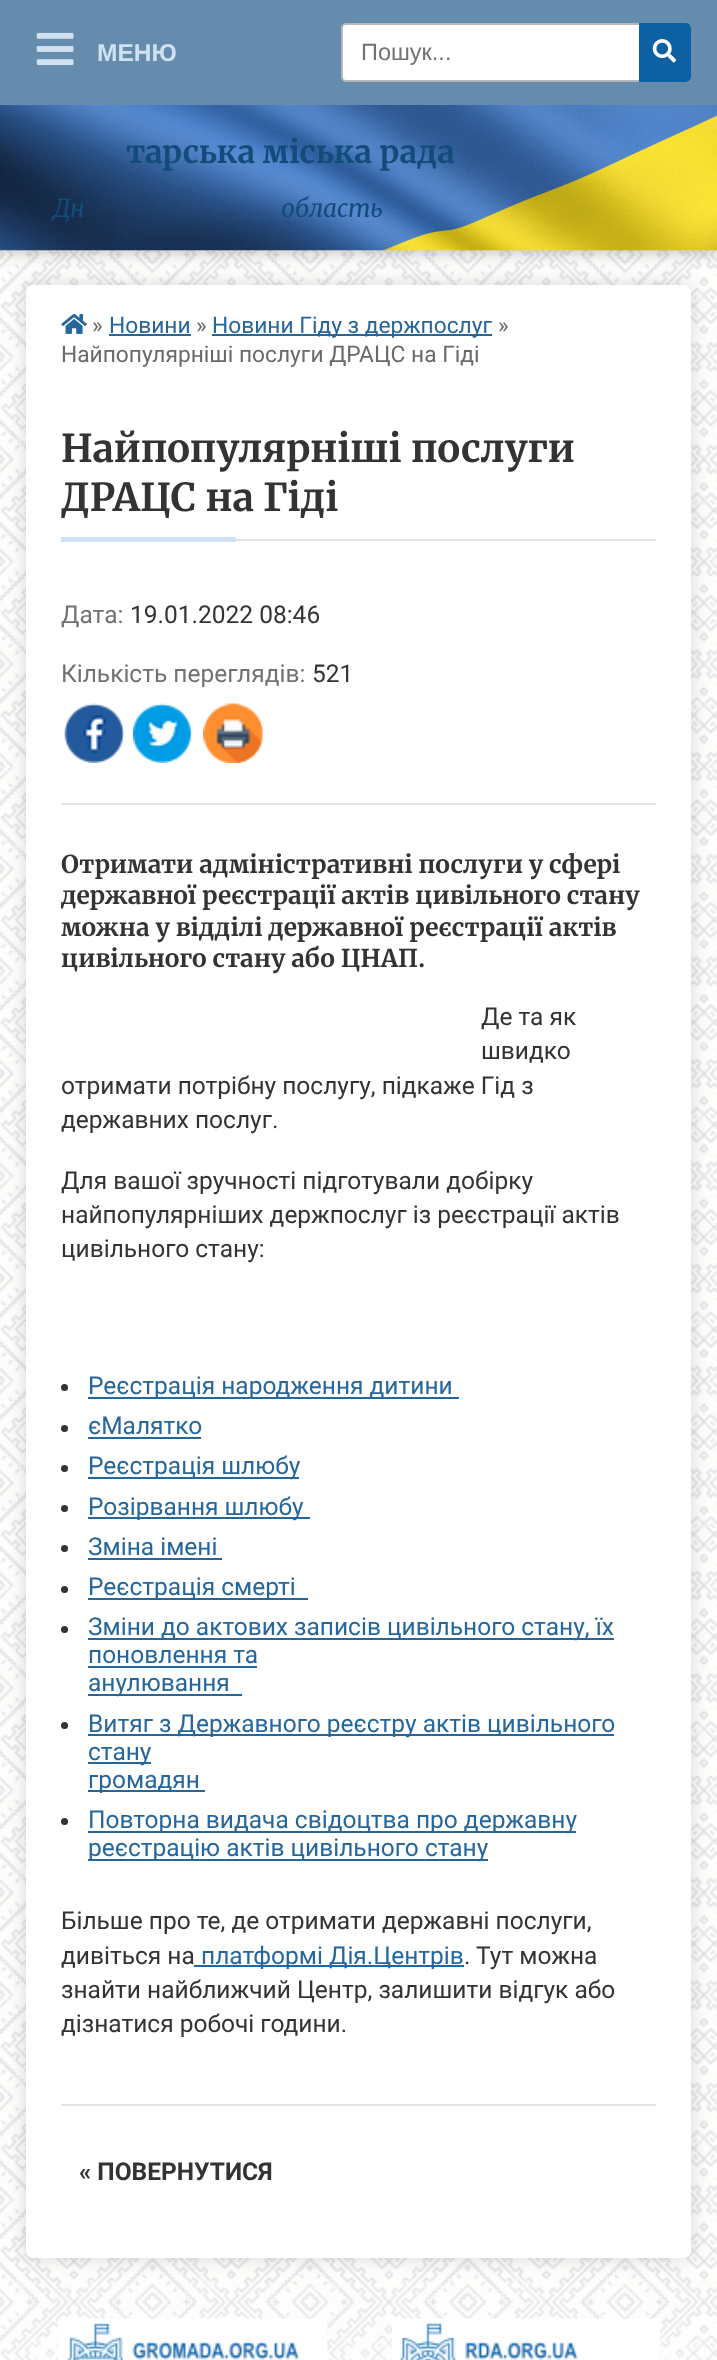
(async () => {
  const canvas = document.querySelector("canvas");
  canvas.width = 717;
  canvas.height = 2360;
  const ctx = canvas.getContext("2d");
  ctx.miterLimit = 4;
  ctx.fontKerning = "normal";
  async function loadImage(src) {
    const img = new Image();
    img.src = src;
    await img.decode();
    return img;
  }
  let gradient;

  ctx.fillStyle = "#ffffff";
  ctx.fillRect(0, 0, 717, 2360);
  ctx.drawImage(await loadImage("img/1.png"), 0, 250, 717, 2110);
  gradient = ctx.createLinearGradient(359, 2231, 359, 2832);
  gradient.addColorStop(0, "rgba(255, 255, 255, 0)");
  gradient.addColorStop(1, "#ffffff");
  ctx.fillStyle = gradient;
  ctx.fillRect(0, 2284, 717, 76);
  ctx.fillStyle = "rgba(0, 0, 0, 0.15)";
  ctx.filter = "blur(9px)";
  ctx.beginPath();
  ctx.roundRect(26, 285, 665, 1973, 7);
  ctx.fill();
  ctx.filter = "none";
  ctx.fillStyle = "#ffffff";
  ctx.beginPath();
  ctx.roundRect(26, 285, 665, 1973, 7);
  ctx.fill();
  ctx.fillStyle = "rgba(0, 0, 0, 0.3)";
  ctx.filter = "blur(9px)";
  ctx.beginPath();
  ctx.rect(0, 105, 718, 145);
  ctx.fill();
  ctx.filter = "none";
  ctx.fillStyle = "#668cad";
  ctx.fillRect(0, 0, 717, 105);
  ctx.drawImage(await loadImage("img/2.png"), 36, 32, 38, 34);
  ctx.drawImage(await loadImage("img/3.png"), 61, 314, 26, 20);
  for (const [x, y, w, h, color] of [
    [109, 334, 82, 2, "#25669c"],
    [212, 334, 280, 2, "#25669c"],
    [236, 539, 420, 2, "#e5e5e5"],
    [61, 537, 175, 5, "#d0e2f2"],
  ]) {
    ctx.fillStyle = color;
    ctx.fillRect(x, y, w, h);
  }
  ctx.drawImage(await loadImage("img/4.png"), 64, 703, 61, 60);
  ctx.drawImage(await loadImage("img/5.png"), 133, 703, 59, 60);
  ctx.drawImage(await loadImage("img/6.png"), 203, 703, 60, 60);
  ctx.fillStyle = "#e5e5e5";
  ctx.fillRect(61, 803, 595, 2);
  ctx.fillStyle = "#333333";
  ctx.beginPath();
  ctx.arc(64.5, 1387.5, 3.5, 0, Math.PI * 2);
  ctx.fill();
  ctx.fillStyle = "#25669c";
  ctx.fillRect(88, 1397, 371, 2);
  ctx.fillStyle = "#333333";
  ctx.beginPath();
  ctx.arc(64.5, 1428.5, 3.5, 0, Math.PI * 2);
  ctx.fill();
  ctx.fillStyle = "#25669c";
  ctx.fillRect(88, 1437, 113, 2);
  ctx.fillStyle = "#333333";
  ctx.beginPath();
  ctx.arc(64.5, 1468.5, 3.5, 0, Math.PI * 2);
  ctx.fill();
  ctx.fillStyle = "#25669c";
  ctx.fillRect(88, 1477, 211, 2);
  ctx.fillStyle = "#333333";
  ctx.beginPath();
  ctx.arc(64.5, 1508.5, 3.5, 0, Math.PI * 2);
  ctx.fill();
  ctx.fillStyle = "#25669c";
  ctx.fillRect(88, 1517, 222, 2);
  ctx.fillStyle = "#333333";
  ctx.beginPath();
  ctx.arc(64.5, 1548.5, 3.5, 0, Math.PI * 2);
  ctx.fill();
  ctx.fillStyle = "#25669c";
  ctx.fillRect(88, 1558, 134, 2);
  ctx.fillStyle = "#333333";
  ctx.beginPath();
  ctx.arc(64.5, 1589.5, 3.5, 0, Math.PI * 2);
  ctx.fill();
  ctx.fillStyle = "#25669c";
  ctx.fillRect(88, 1598, 220, 2);
  ctx.fillStyle = "#333333";
  ctx.beginPath();
  ctx.arc(64.5, 1629.5, 3.5, 0, Math.PI * 2);
  ctx.fill();
  for (const [x, y, w, h, color] of [
    [88, 1638, 526, 2, "#25669c"],
    [88, 1666, 169, 2, "#25669c"],
    [88, 1694, 154, 2, "#25669c"],
  ]) {
    ctx.fillStyle = color;
    ctx.fillRect(x, y, w, h);
  }
  ctx.fillStyle = "#333333";
  ctx.beginPath();
  ctx.arc(64.5, 1725.5, 3.5, 0, Math.PI * 2);
  ctx.fill();
  for (const [x, y, w, h, color] of [
    [88, 1734, 526, 2, "#25669c"],
    [88, 1762, 63, 2, "#25669c"],
    [88, 1790, 117, 2, "#25669c"],
  ]) {
    ctx.fillStyle = color;
    ctx.fillRect(x, y, w, h);
  }
  ctx.fillStyle = "#333333";
  ctx.beginPath();
  ctx.arc(64.5, 1821.5, 3.5, 0, Math.PI * 2);
  ctx.fill();
  for (const [x, y, w, h, color] of [
    [88, 1831, 488, 2, "#25669c"],
    [88, 1859, 400, 2, "#25669c"],
    [194, 1965, 270, 2, "#25669c"],
    [61, 2104, 595, 2, "#e5e5e5"],
  ]) {
    ctx.fillStyle = color;
    ctx.fillRect(x, y, w, h);
  }
  ctx.fillStyle = "#ffffff";
  ctx.beginPath();
  ctx.roundRect(342, 24, 348, 57, 4);
  ctx.fill();
  ctx.strokeStyle = "#b7b7b7";
  ctx.lineWidth = 2;
  ctx.stroke();
  ctx.fillStyle = "#0d61a2";
  ctx.beginPath();
  ctx.roundRect(639, 23, 52, 59, [0, 5, 5, 0]);
  ctx.fill();
  ctx.drawImage(await loadImage("img/7.png"), 652, 39, 24, 24);
  ctx.drawImage(await loadImage("img/8.png"), 0, 105, 717, 146);
  ctx.drawImage(await loadImage("img/9.png"), 57, 2318, 271, 42);
  ctx.drawImage(await loadImage("img/10.png"), 392, 2318, 268, 42);
  ctx.font = "bold 24.5px Liberation Sans";
  ctx.fillStyle = "#d0e2f2";
  ctx.fillText("МЕНЮ", 97, 61);
  ctx.font = "22.75px Roboto";
  ctx.fillStyle = "#696969";
  ctx.fillText("»", 92, 333);
  ctx.fillStyle = "#25669c";
  ctx.fillText("Новини", 109, 333);
  ctx.fillStyle = "#696969";
  ctx.fillText("»", 196, 333);
  ctx.fillStyle = "#25669c";
  ctx.fillText("Новини Гіду з держпослуг", 212, 333);
  ctx.fillStyle = "#696969";
  ctx.fillText("»", 498, 333);
  ctx.fillText("Найпопулярніші послуги ДРАЦС на Гіді", 61, 362);
  ctx.font = "300 38.5px Merriweather";
  ctx.fillStyle = "#333333";
  ctx.fillText("Найпопулярніші послуги", 61, 462);
  ctx.fillText("ДРАЦС на Гіді", 61, 511);
  ctx.font = "24.5px Roboto";
  ctx.fillStyle = "#727272";
  ctx.fillText("Дата:", 61, 623);
  ctx.fillStyle = "#333333";
  ctx.fillText("19.01.2022 08:46", 130, 623);
  ctx.fillStyle = "#727272";
  ctx.fillText("Кількість переглядів:", 61, 682);
  ctx.fillStyle = "#333333";
  ctx.fillText("521", 312, 682);
  ctx.font = "300 24.5px Merriweather";
  for (const [text, x, y] of [
    ["Отримати адміністративні послуги у сфері", 61, 873],
    ["державної реєстрації актів цивільного стану", 61, 904],
    ["можна у відділі державної реєстрації актів", 61, 936],
    ["цивільного стану або ЦНАП.", 61, 967],
  ]) {
    ctx.fillText(text, x, y);
  }
  ctx.font = "24.5px Roboto";
  for (const [text, x, y] of [
    ["Де та як", 481, 1025],
    ["швидко", 481, 1059],
    ["отримати потрібну послугу, підкаже Гід з", 61, 1094],
    ["державних послуг.", 61, 1128],
    ["Для вашої зручності підготували добірку", 61, 1189],
    ["найпопулярніших держпослуг із реєстрації актів", 61, 1223],
    ["цивільного стану:", 61, 1257],
  ]) {
    ctx.fillText(text, x, y);
  }
  ctx.fillStyle = "#25669c";
  for (const [text, x, y] of [
    ["Реєстрація народження дитини", 88, 1394],
    ["єМалятко", 88, 1434],
    ["Реєстрація шлюбу", 88, 1474],
    ["Розірвання шлюбу", 88, 1515],
    ["Зміна імені", 88, 1555],
    ["Реєстрація смерті", 88, 1595],
    ["Зміни до актових записів цивільного стану, їх", 88, 1635],
    ["поновлення та", 88, 1663],
    ["анулювання", 88, 1691],
    ["Витяг з Державного реєстру актів цивільного", 88, 1732],
    ["стану", 88, 1760],
    ["громадян", 88, 1788],
    ["Повторна видача свідоцтва про державну", 88, 1828],
    ["реєстрацію актів цивільного стану", 88, 1856],
  ]) {
    ctx.fillText(text, x, y);
  }
  ctx.fillStyle = "#333333";
  ctx.fillText("Більше про те, де отримати державні послуги,", 61, 1929);
  ctx.fillText("дивіться на", 61, 1964);
  ctx.fillStyle = "#25669c";
  ctx.fillText("платформі Дія.Центрів", 201, 1964);
  ctx.fillStyle = "#333333";
  for (const [text, x, y] of [
    [". Тут можна", 464, 1964],
    ["знайти найближчий Центр, залишити відгук або", 61, 1998],
    ["дізнатися робочі години.", 61, 2032],
  ]) {
    ctx.fillText(text, x, y);
  }
  ctx.font = "bold 24.5px Roboto";
  ctx.fillText("« ПОВЕРНУТИСЯ", 79, 2180);
  ctx.font = "23.5px Liberation Sans";
  ctx.fillStyle = "#727272";
  ctx.fillText("Пошук...", 361, 60);
  ctx.font = "300 31.5px Merriweather";
  ctx.fillStyle = "#134c7b";
  ctx.fillText("тарська міська рада", 126, 163);
  ctx.font = "italic 300 24.5px Merriweather";
  ctx.fillText("Дн", 53, 217);
  ctx.fillText("область", 281, 217);
})();
